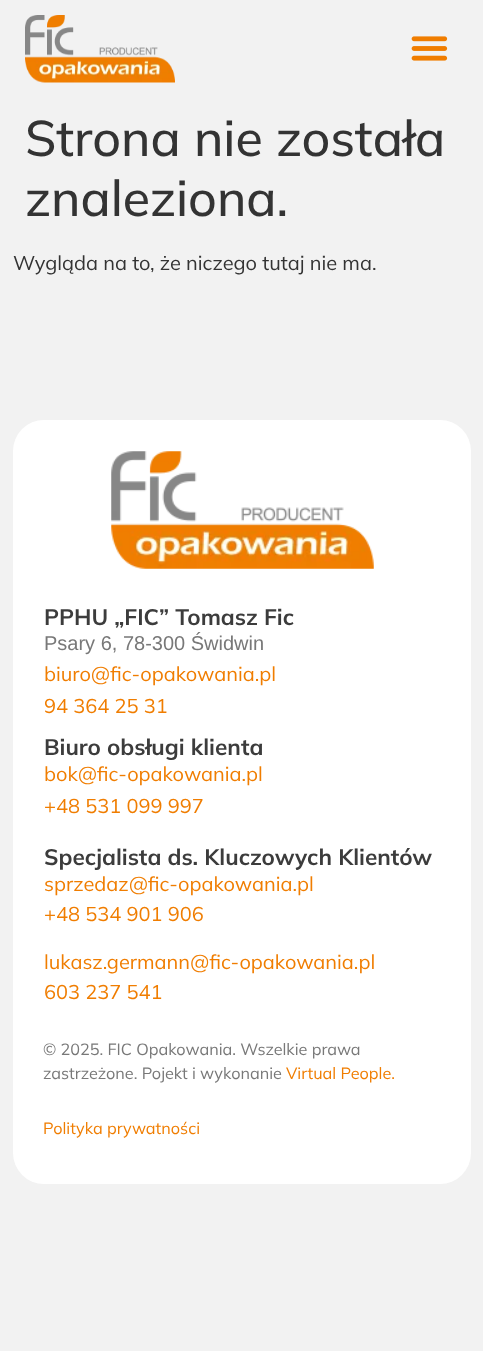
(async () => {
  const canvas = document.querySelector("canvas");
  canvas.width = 483;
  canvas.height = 1351;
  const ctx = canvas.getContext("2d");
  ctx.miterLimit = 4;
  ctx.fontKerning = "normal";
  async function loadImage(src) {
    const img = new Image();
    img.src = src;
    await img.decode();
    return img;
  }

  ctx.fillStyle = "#f2f2f2";
  ctx.fillRect(0, 0, 483, 1351);
  ctx.drawImage(await loadImage("img/1.png"), 25, 15, 150, 68);
  ctx.drawImage(await loadImage("img/2.png"), 411, 36, 37, 25);
  ctx.fillStyle = "#ffffff";
  ctx.beginPath();
  ctx.roundRect(13, 420, 458, 605, [31, 31, 0, 0]);
  ctx.fill();
  ctx.drawImage(await loadImage("img/3.png"), 111, 451, 263, 118);
  ctx.beginPath();
  ctx.roundRect(13, 1025, 458, 159, [0, 0, 31, 31]);
  ctx.fill();
  ctx.font = "500 50px Mulish";
  ctx.fillStyle = "#333333";
  ctx.fillText("Strona nie została", 25, 156);
  ctx.fillText("znaleziona.", 25, 216);
  ctx.font = "20px Mulish";
  ctx.fillText("Wygląda na to, że niczego tutaj nie ma.", 13, 270);
  ctx.font = "bold 22.5px Mulish";
  ctx.fillStyle = "#3c3c3c";
  ctx.fillText("PPHU „FIC” Tomasz Fic", 44, 625);
  ctx.font = "20px Liberation Sans";
  ctx.fillStyle = "#787878";
  ctx.fillText("Psary 6, 78-300 Świdwin", 44, 650);
  ctx.font = "20px Mulish";
  ctx.fillStyle = "#f07d00";
  ctx.fillText("biuro@fic-opakowania.pl", 44, 681);
  ctx.fillText("94 364 25 31", 44, 713);
  ctx.font = "bold 22.5px Mulish";
  ctx.fillStyle = "#3c3c3c";
  ctx.fillText("Biuro obsługi klienta", 44, 755);
  ctx.font = "20px Mulish";
  ctx.fillStyle = "#f07d00";
  ctx.fillText("bok@fic-opakowania.pl", 44, 781);
  ctx.fillText("+48 531 099 997", 44, 813);
  ctx.font = "bold 22.5px Mulish";
  ctx.fillStyle = "#3c3c3c";
  ctx.fillText("Specjalista ds. Kluczowych Klientów", 44, 865);
  ctx.font = "20px Mulish";
  ctx.fillStyle = "#f07d00";
  for (const [text, x, y] of [
    ["sprzedaz@fic-opakowania.pl", 44, 891],
    ["+48 534 901 906", 44, 921],
    ["lukasz.germann@fic-opakowania.pl", 44, 969],
    ["603 237 541", 44, 999],
  ]) {
    ctx.fillText(text, x, y);
  }
  ctx.font = "16.25px Mulish";
  ctx.fillStyle = "#787878";
  ctx.fillText("© 2025. FIC Opakowania. Wszelkie prawa", 43, 1055);
  ctx.fillText("zastrzeżone. Pojekt i wykonanie", 43, 1079);
  ctx.fillStyle = "#f07d00";
  ctx.fillText("Virtual People.", 286, 1079);
  ctx.fillText("Polityka prywatności", 43, 1134);
})();
